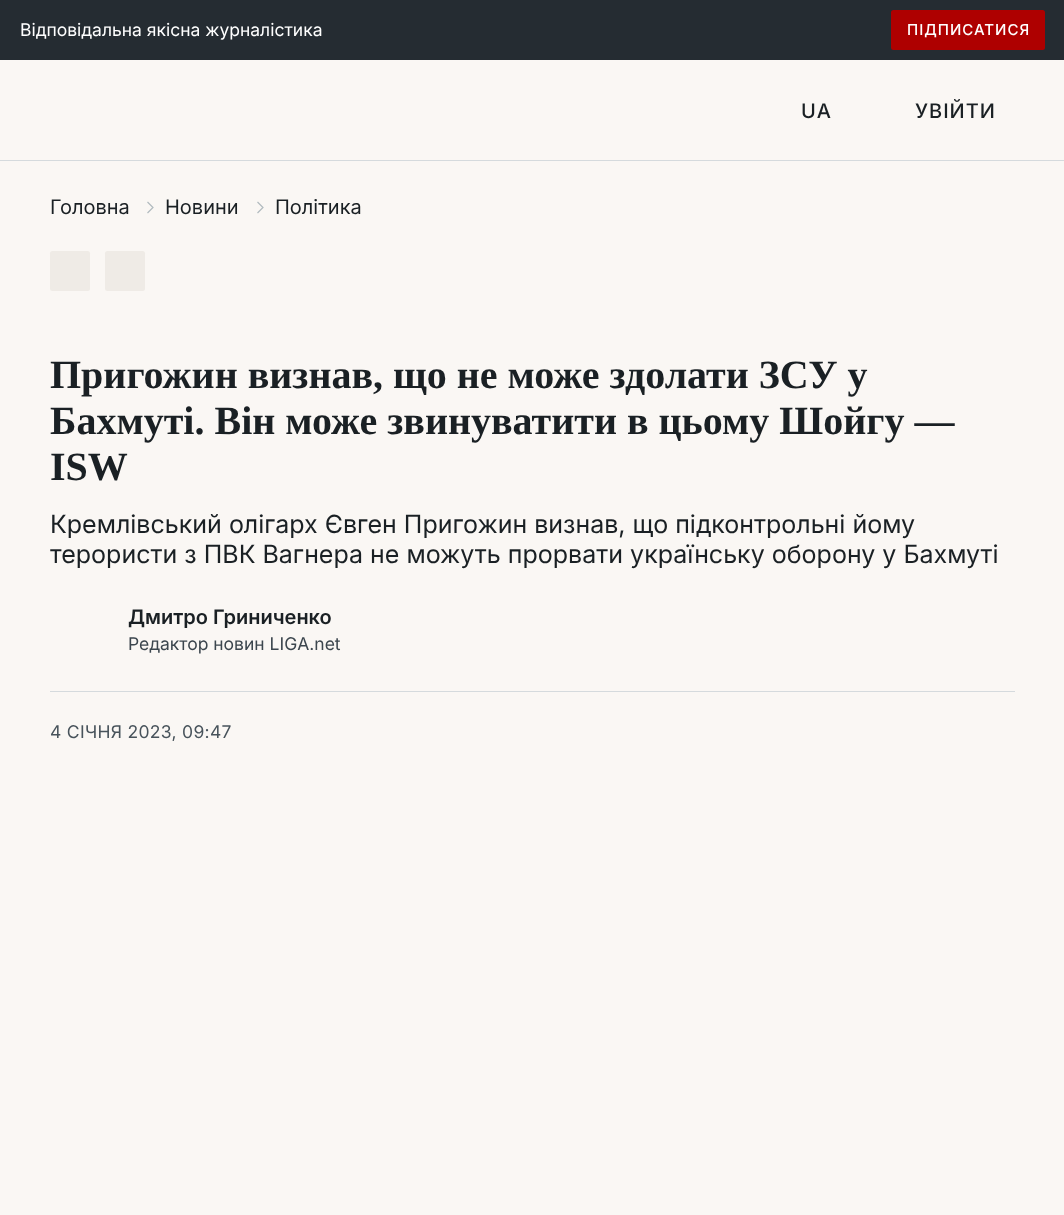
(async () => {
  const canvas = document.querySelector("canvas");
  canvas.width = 1064;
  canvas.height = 1215;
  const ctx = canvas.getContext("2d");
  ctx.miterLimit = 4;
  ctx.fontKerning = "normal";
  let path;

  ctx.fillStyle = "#faf7f4";
  ctx.fillRect(0, 0, 1064, 1215);
  ctx.fillStyle = "#252c32";
  ctx.fillRect(0, 0, 1064, 60);
  ctx.fillStyle = "#ae0000";
  ctx.beginPath();
  ctx.roundRect(891, 10, 154, 40, 2.5);
  ctx.fill();
  ctx.fillStyle = "#d5dadd";
  ctx.fillRect(0, 160, 1064, 1);
  path = new Path2D("M147.5 202L153 207.5L147.5 213");
  ctx.strokeStyle = "#b0babf";
  ctx.lineWidth = 1.2;
  ctx.stroke(path);
  path = new Path2D("M257.5 202L263 207.5L257.5 213");
  ctx.stroke(path);
  ctx.fillStyle = "#efebe6";
  ctx.beginPath();
  ctx.roundRect(50, 251, 40, 40, 2.5);
  ctx.fill();
  ctx.beginPath();
  ctx.roundRect(105, 251, 40, 40, 2.5);
  ctx.fill();
  ctx.fillStyle = "#d5dadd";
  ctx.fillRect(50, 691, 965, 1);
  ctx.font = "17.5px Inter";
  ctx.fillStyle = "#ffffff";
  ctx.fillText("Відповідальна якісна журналістика", 20, 36);
  ctx.letterSpacing = "1px";
  ctx.font = "500 15px Inter";
  ctx.fillText("ПІДПИСАТИСЯ", 907, 35);
  ctx.font = "500 20px Inter";
  ctx.fillStyle = "#1a2024";
  ctx.fillText("UA", 801, 118);
  ctx.fillText("УВІЙТИ", 915, 118);
  ctx.letterSpacing = "0px";
  ctx.font = "20px Inter";
  for (const [text, x, y] of [
    ["Головна", 50, 214],
    ["Новини", 165, 214],
    ["Політика", 275, 214],
  ]) {
    ctx.fillText(text, x, y);
  }
  ctx.font = "bold 40px Tinos";
  for (const [text, x, y] of [
    ["Пригожин визнав, що не може здолати ЗСУ у", 50, 388],
    ["Бахмуті. Він може звинуватити в цьому Шойгу —", 50, 434],
    ["ISW", 50, 480],
  ]) {
    ctx.fillText(text, x, y);
  }
  ctx.font = "25px Inter";
  ctx.fillText("Кремлівський олігарх Євген Пригожин визнав, що підконтрольні йому", 50, 533);
  ctx.fillText("терористи з ПВК Вагнера не можуть прорвати українську оборону у Бахмуті", 50, 563);
  ctx.font = "600 20px Inter";
  ctx.fillText("Дмитро Гриниченко", 128, 624);
  ctx.font = "17.5px Inter";
  ctx.fillStyle = "#3c464e";
  ctx.fillText("Редактор новин LIGA.net", 128, 650);
  ctx.letterSpacing = "0.3px";
  ctx.fillStyle = "#48535b";
  ctx.fillText("4 СІЧНЯ 2023, 09:47", 50, 738);
})();
